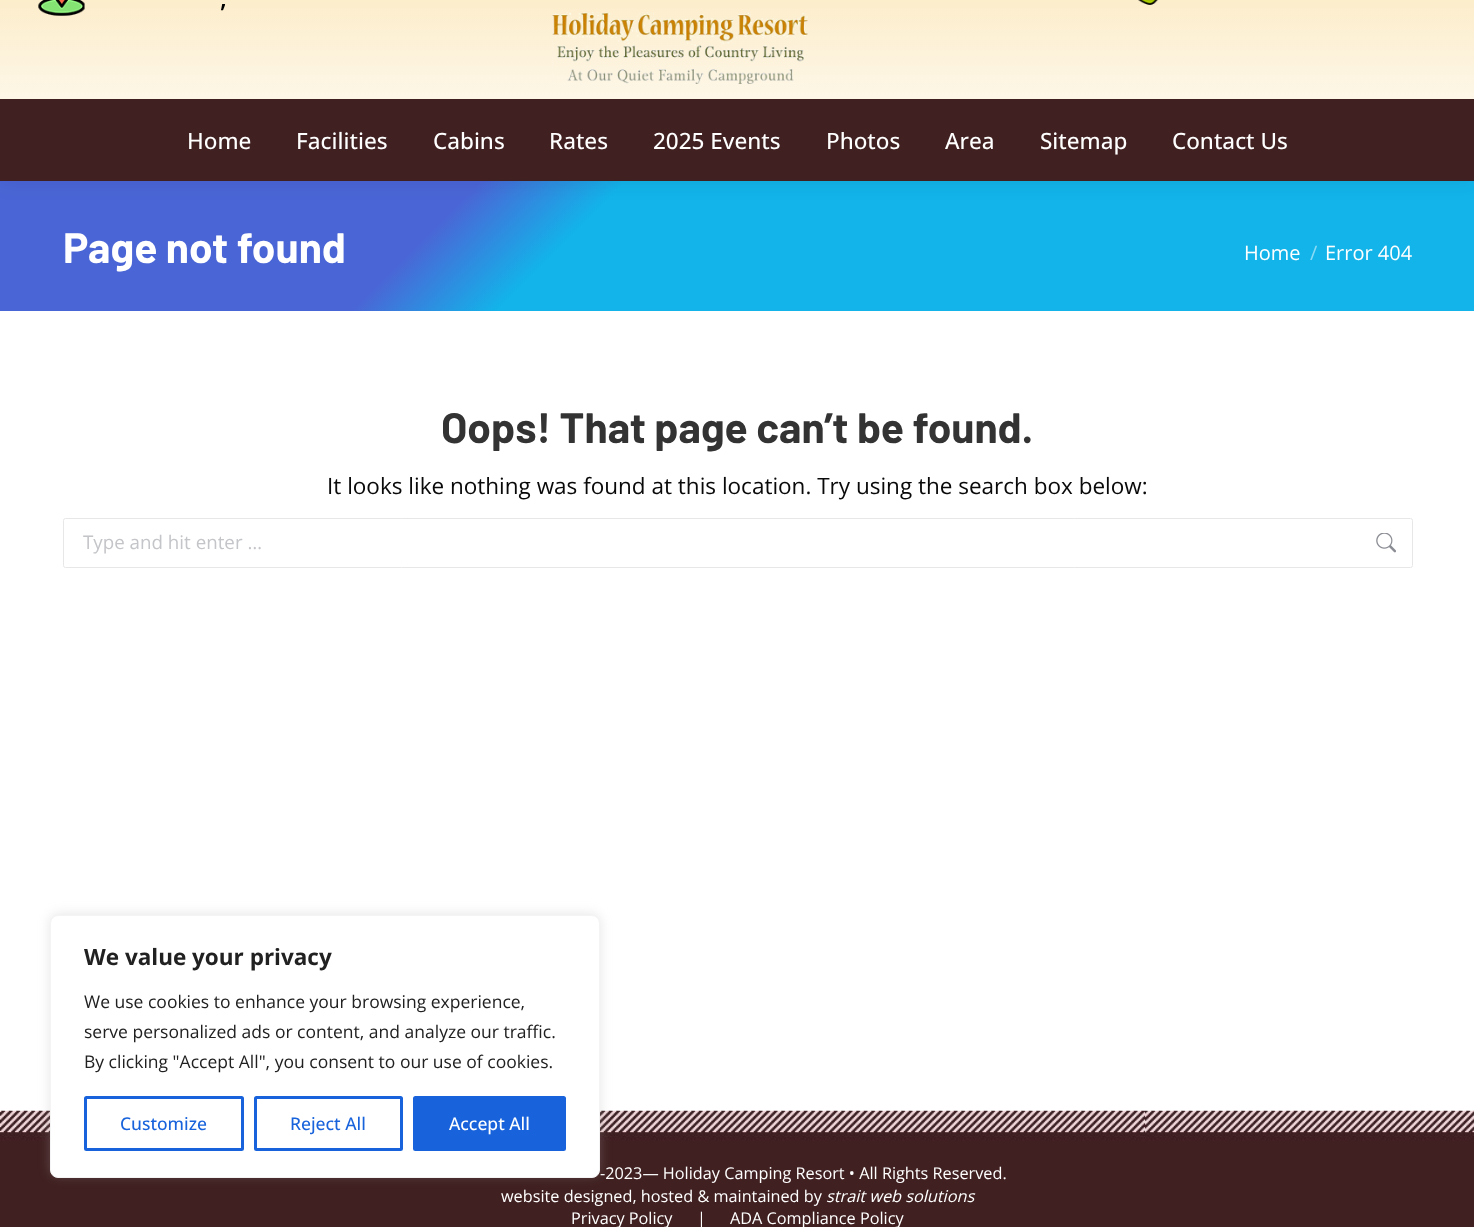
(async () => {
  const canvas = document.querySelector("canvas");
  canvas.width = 1474;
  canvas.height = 1227;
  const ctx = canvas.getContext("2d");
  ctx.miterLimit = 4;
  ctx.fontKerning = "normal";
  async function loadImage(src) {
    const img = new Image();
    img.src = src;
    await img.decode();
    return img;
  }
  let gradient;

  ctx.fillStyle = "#ffffff";
  ctx.fillRect(0, 0, 1474, 1227);
  gradient = ctx.createLinearGradient(336, -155, 1139, 648);
  gradient.addColorStop(0.3, "#4a66d6");
  gradient.addColorStop(0.39, "#12b4ea");
  ctx.fillStyle = gradient;
  ctx.fillRect(0, 181, 1474, 130);
  ctx.fillStyle = "rgba(0, 0, 0, 0.07)";
  ctx.filter = "blur(9.5px)";
  ctx.beginPath();
  ctx.rect(-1, -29, 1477, 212);
  ctx.fill();
  ctx.filter = "none";
  gradient = ctx.createLinearGradient(738, -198, 738, 181);
  gradient.addColorStop(0.2, "#fae1a8");
  gradient.addColorStop(1, "#ffffff");
  ctx.fillStyle = gradient;
  ctx.fillRect(0, 0, 1474, 99);
  ctx.drawImage(await loadImage("img/1.png"), 1138, 0, 20, 5);
  ctx.drawImage(await loadImage("img/2.png"), 38, 0, 47, 16);
  ctx.drawImage(await loadImage("img/3.png"), 552, 12, 256, 72);
  ctx.fillStyle = "#402021";
  ctx.fillRect(0, 99, 1474, 82);
  ctx.beginPath();
  ctx.roundRect(63.5, 518.5, 1349, 49, 2);
  ctx.strokeStyle = "#e7e7e7";
  ctx.stroke();
  ctx.drawImage(await loadImage("img/4.png"), 1376, 533, 20, 20);
  ctx.drawImage(await loadImage("img/5.png"), 0, 1110, 1474, 117);
  ctx.fillStyle = "rgba(172, 171, 171, 0.3)";
  ctx.filter = "blur(6px)";
  ctx.beginPath();
  ctx.roundRect(50, 914, 550, 262, 8);
  ctx.fill();
  ctx.filter = "none";
  ctx.fillStyle = "#ffffff";
  ctx.beginPath();
  ctx.roundRect(50.5, 915.5, 549, 262, 7.5);
  ctx.fill();
  ctx.strokeStyle = "#f4f4f4";
  ctx.stroke();
  ctx.beginPath();
  ctx.roundRect(85.5, 1097.5, 157, 52, 1);
  ctx.strokeStyle = "#1863dc";
  ctx.lineWidth = 3;
  ctx.stroke();
  ctx.beginPath();
  ctx.roundRect(255.5, 1097.5, 146, 52, 1);
  ctx.stroke();
  ctx.fillStyle = "#1863dc";
  ctx.beginPath();
  ctx.roundRect(414.5, 1097.5, 150, 52, 1);
  ctx.fill();
  ctx.stroke();
  ctx.font = "600 25px Open Sans";
  ctx.fillStyle = "#000000";
  ctx.fillText(",", 220, 7);
  ctx.font = "500 22.5px Open Sans";
  ctx.fillStyle = "#ffffff";
  for (const [text, x, y] of [
    ["Home", 187, 149],
    ["Facilities", 296, 149],
    ["Cabins", 433, 149],
    ["Rates", 549, 149],
    ["2025 Events", 653, 149],
    ["Photos", 826, 149],
    ["Area", 945, 149],
    ["Sitemap", 1040, 149],
    ["Contact Us", 1172, 149],
  ]) {
    ctx.fillText(text, x, y);
  }
  ctx.font = "bold 42.5px Barlow";
  ctx.fillText("Page not found", 63, 263);
  ctx.font = "20px Open Sans";
  ctx.fillText("Home", 1244, 260);
  ctx.fillStyle = "#89daf5";
  ctx.fillText("/", 1310, 260);
  ctx.fillStyle = "#ffffff";
  ctx.fillText("Error 404", 1325, 260);
  ctx.font = "bold 42.5px Barlow";
  ctx.fillStyle = "#333333";
  ctx.fillText("Oops! That page can’t be found.", 441, 443);
  ctx.font = "22.5px Open Sans";
  ctx.fillStyle = "#0a0909";
  ctx.fillText("It looks like nothing was found at this location. Try using the search box below:", 327, 494);
  ctx.font = "18.75px Open Sans";
  ctx.fillStyle = "#c4c5c9";
  ctx.fillText("Type and hit enter …", 83, 549);
  ctx.font = "16.25px Open Sans";
  ctx.fillStyle = "#ffffff";
  ctx.fillText("-2023— Holiday Camping Resort • All Rights Reserved.", 600, 1179);
  ctx.fillText("website designed, hosted & maintained by", 501, 1202);
  ctx.font = "italic 16.25px Open Sans";
  ctx.fillText("strait web solutions", 826, 1202);
  ctx.font = "16.25px Open Sans";
  for (const [text, x, y] of [
    ["Privacy Policy", 571, 1224],
    ["|", 697, 1224],
    ["ADA Compliance Policy", 730, 1224],
  ]) {
    ctx.fillText(text, x, y);
  }
  ctx.font = "bold 22.5px Open Sans";
  ctx.fillStyle = "#212121";
  ctx.fillText("We value your privacy", 84, 965);
  ctx.font = "17.5px Open Sans";
  for (const [text, x, y] of [
    ["We use cookies to enhance your browsing experience,", 84, 1008],
    ["serve personalized ads or content, and analyze our traffic.", 84, 1038],
    ["By clicking \"Accept All\", you consent to our use of cookies.", 84, 1068],
  ]) {
    ctx.fillText(text, x, y);
  }
  ctx.font = "500 17.5px Open Sans";
  ctx.fillStyle = "#1863dc";
  ctx.fillText("Customize", 120, 1130);
  ctx.fillText("Reject All", 290, 1130);
  ctx.fillStyle = "#ffffff";
  ctx.fillText("Accept All", 449, 1130);
})();
